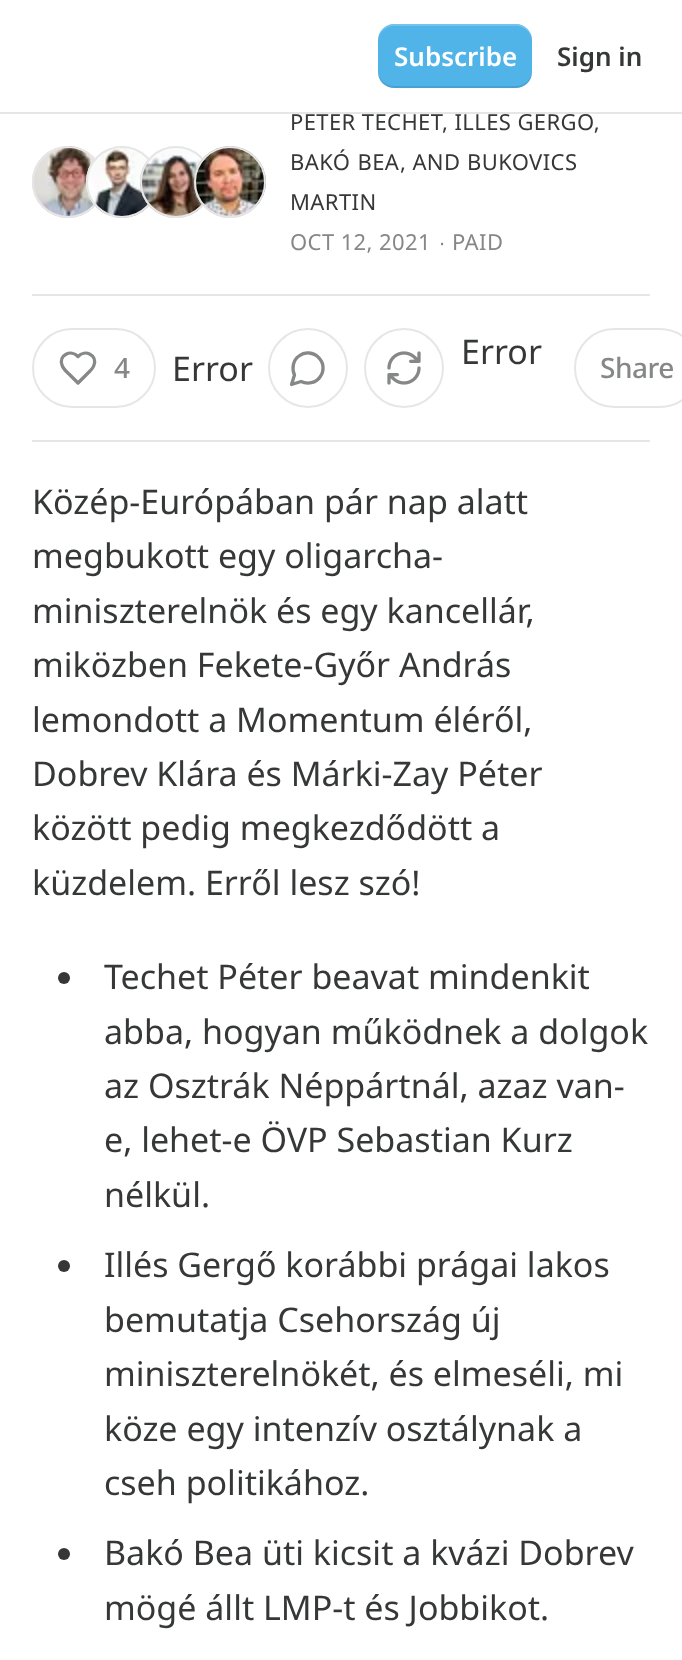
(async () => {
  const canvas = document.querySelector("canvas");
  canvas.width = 682;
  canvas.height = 1660;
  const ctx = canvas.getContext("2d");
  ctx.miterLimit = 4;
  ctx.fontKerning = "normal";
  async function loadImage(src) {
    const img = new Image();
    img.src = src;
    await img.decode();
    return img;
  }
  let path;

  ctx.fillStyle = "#ffffff";
  ctx.fillRect(0, 0, 682, 1660);
  ctx.fillStyle = "#51b4e9";
  ctx.beginPath();
  ctx.roundRect(378, 24, 154, 64, 16);
  ctx.fill();
  ctx.fillStyle = "rgba(0, 0, 0, 0.1)";
  path = new Path2D("M378 70C378 92 398 88 414 88H496C512 88 532 92 532 70C532 79 525 86 516 86H394C385 86 378 79 378 70Z");
  ctx.fill(path);
  ctx.fillStyle = "rgba(255, 255, 255, 0.2)";
  path = new Path2D("M394 26H516C525 26 532 33 532 42C532 20 512 24 496 24H414C398 24 378 20 378 42C378 33 385 26 394 26Z");
  ctx.fill(path);
  ctx.beginPath();
  ctx.arc(68, 182, 35, 0, Math.PI * 2);
  ctx.strokeStyle = "#e6e6e6";
  ctx.lineWidth = 2;
  ctx.stroke();
  ctx.drawImage(await loadImage("img/1.png"), 32, 146, 64, 72);
  ctx.beginPath();
  ctx.arc(68, 182, 35, 0, Math.PI * 2);
  ctx.stroke();
  ctx.beginPath();
  ctx.arc(122, 182, 35, 0, Math.PI * 2);
  ctx.stroke();
  ctx.drawImage(await loadImage("img/2.png"), 86, 146, 64, 72);
  ctx.beginPath();
  ctx.arc(122, 182, 35, 0, Math.PI * 2);
  ctx.stroke();
  ctx.beginPath();
  ctx.arc(176, 182, 35, 0, Math.PI * 2);
  ctx.stroke();
  ctx.drawImage(await loadImage("img/3.png"), 140, 146, 64, 72);
  ctx.beginPath();
  ctx.arc(176, 182, 35, 0, Math.PI * 2);
  ctx.stroke();
  ctx.beginPath();
  ctx.arc(230, 182, 35, 0, Math.PI * 2);
  ctx.stroke();
  ctx.drawImage(await loadImage("img/4.png"), 194, 146, 72, 72);
  ctx.beginPath();
  ctx.arc(230, 182, 35, 0, Math.PI * 2);
  ctx.stroke();
  ctx.fillStyle = "#e6e6e6";
  ctx.fillRect(32, 294, 618, 2);
  ctx.fillRect(32, 440, 618, 2);
  ctx.beginPath();
  ctx.arc(308, 368, 39, 0, Math.PI * 2);
  ctx.stroke();
  path = new Path2D("M301 381.5C307.5 384.5 316 383 320 377C324.5 371 324 362.5 318.5 357.5C313.5 352 305 351.5 299 356C293 360 291.5 368.5 294.5 375L291.5 384.5Z");
  ctx.strokeStyle = "#868787";
  ctx.lineWidth = 3.3;
  ctx.lineCap = "round";
  ctx.lineJoin = "round";
  ctx.stroke(path);
  ctx.beginPath();
  ctx.arc(404, 368, 39, 0, Math.PI * 2);
  ctx.strokeStyle = "#e6e6e6";
  ctx.lineWidth = 2;
  ctx.stroke();
  ctx.drawImage(await loadImage("img/5.png"), 387, 351, 34, 34);
  ctx.beginPath();
  ctx.roundRect(33, 329, 122, 78, 39);
  ctx.lineJoin = "miter";
  ctx.stroke();
  path = new Path2D("M89.5 371.5C91.5 369.5 93.5 367.5 94 365C97.5 355 85 349 78 356.5C71 349 58.5 355 62 365C63 369 67 372 70 375L78 383Z");
  ctx.strokeStyle = "#868787";
  ctx.lineWidth = 3.3;
  ctx.lineJoin = "round";
  ctx.stroke(path);
  ctx.beginPath();
  ctx.roundRect(575, 329, 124, 78, 39);
  ctx.strokeStyle = "#e6e6e6";
  ctx.lineWidth = 2;
  ctx.lineJoin = "miter";
  ctx.stroke();
  ctx.fillStyle = "#363737";
  ctx.beginPath();
  ctx.arc(64, 978, 6, 0, Math.PI * 2);
  ctx.fill();
  ctx.beginPath();
  ctx.arc(64, 1266, 6, 0, Math.PI * 2);
  ctx.fill();
  ctx.beginPath();
  ctx.arc(64, 1554, 6, 0, Math.PI * 2);
  ctx.fill();
  ctx.font = "600 26px Noto Sans";
  ctx.fillStyle = "#ffffff";
  ctx.fillText("Subscribe", 394, 66);
  ctx.fillStyle = "#363737";
  ctx.fillText("Sign in", 557, 66);
  ctx.letterSpacing = "0.4px";
  ctx.font = "22px Noto Sans";
  ctx.fillText("PÉTER TECHET, ILLÉS GERGŐ,", 290, 130);
  ctx.fillStyle = "#e6e6e6";
  ctx.fillRect(0, 112, 682, 2);
  ctx.fillStyle = "#ffffff";
  ctx.fillRect(309, 109, 282, 3);
  ctx.wordSpacing = "1px";
  ctx.fillStyle = "#363737";
  ctx.fillText("BAKÓ BEA", 290, 170);
  ctx.wordSpacing = "0px";
  for (const [text, x, y] of [
    [", AND", 400, 170],
    ["BUKOVICS", 467, 170],
    ["MARTIN", 290, 210],
  ]) {
    ctx.fillText(text, x, y);
  }
  ctx.fillStyle = "#868787";
  ctx.fillText("OCT 12, 2021", 290, 250);
  ctx.font = "22px Liberation Sans";
  ctx.fillText("∙", 439, 250);
  ctx.font = "22px Noto Sans";
  ctx.fillText("PAID", 452, 250);
  ctx.letterSpacing = "0px";
  ctx.font = "34px Noto Sans";
  ctx.fillStyle = "#363737";
  ctx.fillText("Error", 461, 364);
  ctx.letterSpacing = "-0.5px";
  ctx.font = "500 28px Noto Sans";
  ctx.fillStyle = "#868787";
  ctx.fillText("4", 114, 378);
  ctx.letterSpacing = "0px";
  ctx.font = "34px Noto Sans";
  ctx.fillStyle = "#363737";
  ctx.fillText("Error", 172, 381);
  ctx.letterSpacing = "-0.5px";
  ctx.font = "500 28px Noto Sans";
  ctx.fillStyle = "#868787";
  ctx.fillText("Share", 600, 378);
  ctx.letterSpacing = "0px";
  ctx.font = "34px Noto Sans";
  ctx.fillStyle = "#363737";
  for (const [text, x, y] of [
    ["Közép-Európában pár nap alatt", 32, 514],
    ["megbukott egy oligarcha-", 32, 568],
    ["miniszterelnök és egy kancellár,", 32, 623],
    ["miközben Fekete-Győr András", 32, 677],
    ["lemondott a Momentum éléről,", 32, 732],
    ["Dobrev Klára és Márki-Zay Péter", 32, 786],
    ["között pedig megkezdődött a", 32, 840],
    ["küzdelem. Erről lesz szó!", 32, 895],
    ["Techet Péter beavat mindenkit", 104, 989],
    ["abba, hogyan működnek a dolgok", 104, 1044],
    ["az Osztrák Néppártnál, azaz van-", 104, 1098],
    ["e, lehet-e ÖVP Sebastian Kurz", 104, 1152],
    ["nélkül.", 104, 1207],
    ["Illés Gergő korábbi prágai lakos", 104, 1277],
    ["bemutatja Csehország új", 104, 1332],
    ["miniszterelnökét, és elmeséli, mi", 104, 1386],
    ["köze egy intenzív osztálynak a", 104, 1441],
    ["cseh politikához.", 104, 1495],
    ["Bakó Bea üti kicsit a kvázi Dobrev", 104, 1565],
    ["mögé állt LMP-t és Jobbikot.", 104, 1620],
  ]) {
    ctx.fillText(text, x, y);
  }
})();
